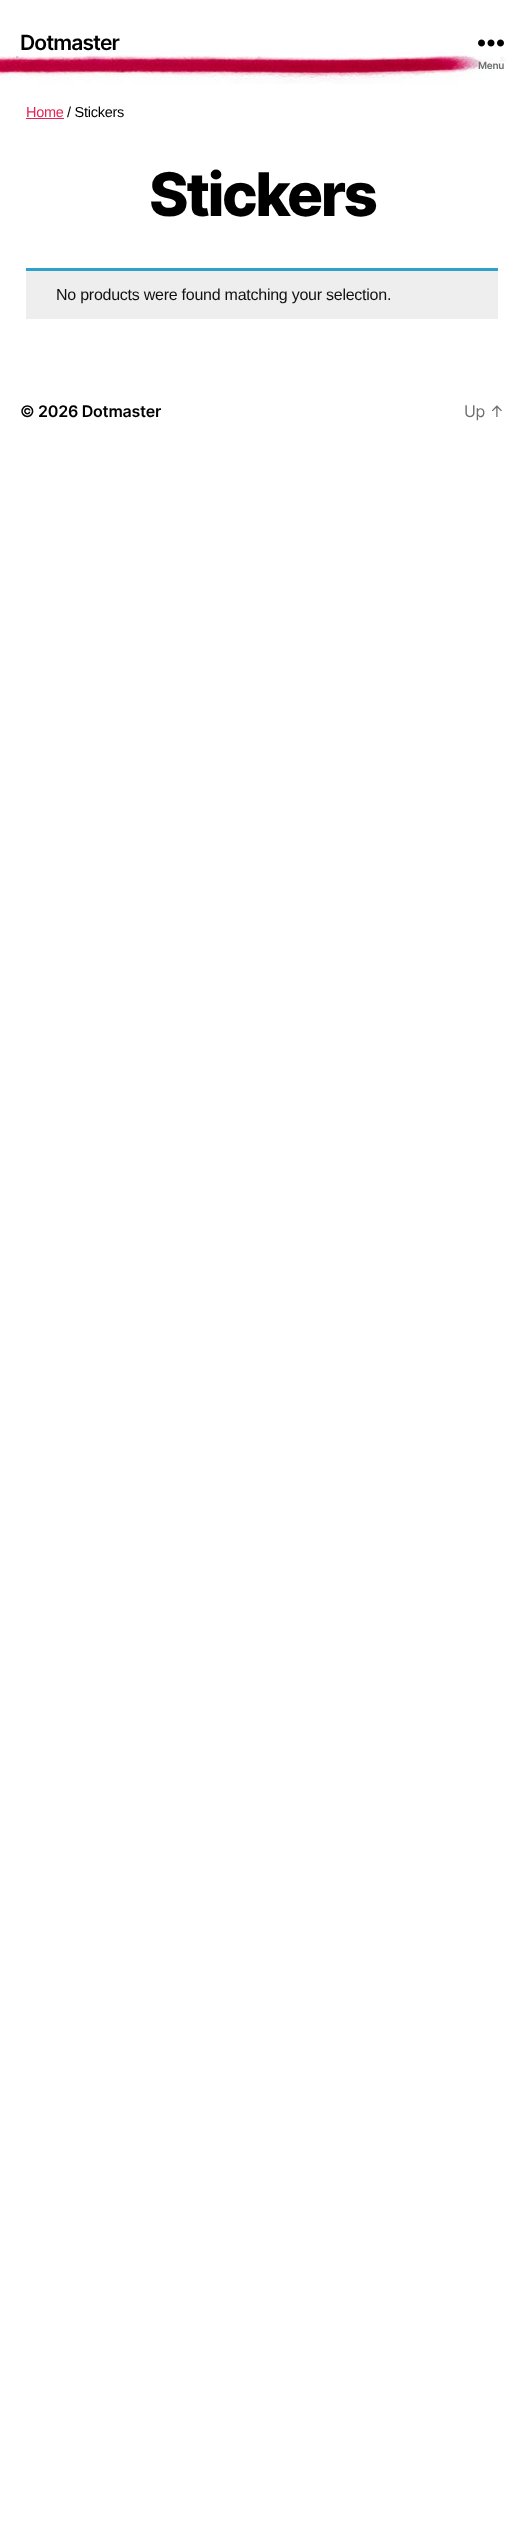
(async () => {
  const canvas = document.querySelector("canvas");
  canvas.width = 524;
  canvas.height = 2532;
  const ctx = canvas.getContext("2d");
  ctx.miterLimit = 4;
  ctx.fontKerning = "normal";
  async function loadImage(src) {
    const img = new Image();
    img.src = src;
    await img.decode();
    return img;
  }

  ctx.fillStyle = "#ffffff";
  ctx.fillRect(0, 0, 524, 2532);
  ctx.drawImage(await loadImage("img/1.png"), 0, 50, 506, 34);
  ctx.drawImage(await loadImage("img/2.png"), 478, 39, 26, 8);
  for (const [x, y, w, h, color] of [
    [26, 118, 38, 1, "#e22658"],
    [26, 271, 472, 48, "#eeeeee"],
    [26, 268, 472, 3, "#2ea2cc"],
  ]) {
    ctx.fillStyle = color;
    ctx.fillRect(x, y, w, h);
  }
  ctx.letterSpacing = "-0.9px";
  ctx.font = "600 21px Inter";
  ctx.fillStyle = "#000000";
  ctx.fillText("Dotmaster", 20, 50);
  ctx.letterSpacing = "-0.25px";
  ctx.font = "600 10px Inter";
  ctx.fillStyle = "#6d6d6d";
  ctx.fillText("Menu", 478, 69);
  ctx.font = "14.5px Liberation Sans";
  ctx.fillStyle = "#e22658";
  ctx.fillText("Home", 26, 117);
  ctx.fillStyle = "#000000";
  ctx.fillText("/ Stickers", 67, 117);
  ctx.letterSpacing = "-2.5px";
  ctx.font = "800 60px Inter";
  ctx.fillText("Stickers", 149, 216);
  ctx.letterSpacing = "-0.25px";
  ctx.font = "16px Liberation Sans";
  ctx.fillStyle = "#111111";
  ctx.fillText("No products were found matching your selection.", 56, 300);
  ctx.font = "600 16px Inter";
  ctx.fillStyle = "#000000";
  ctx.fillText("© 2026 Dotmaster", 20, 417);
  ctx.font = "16px Inter";
  ctx.fillStyle = "#6d6d6d";
  ctx.fillText("Up ↑", 464, 417);
})();
